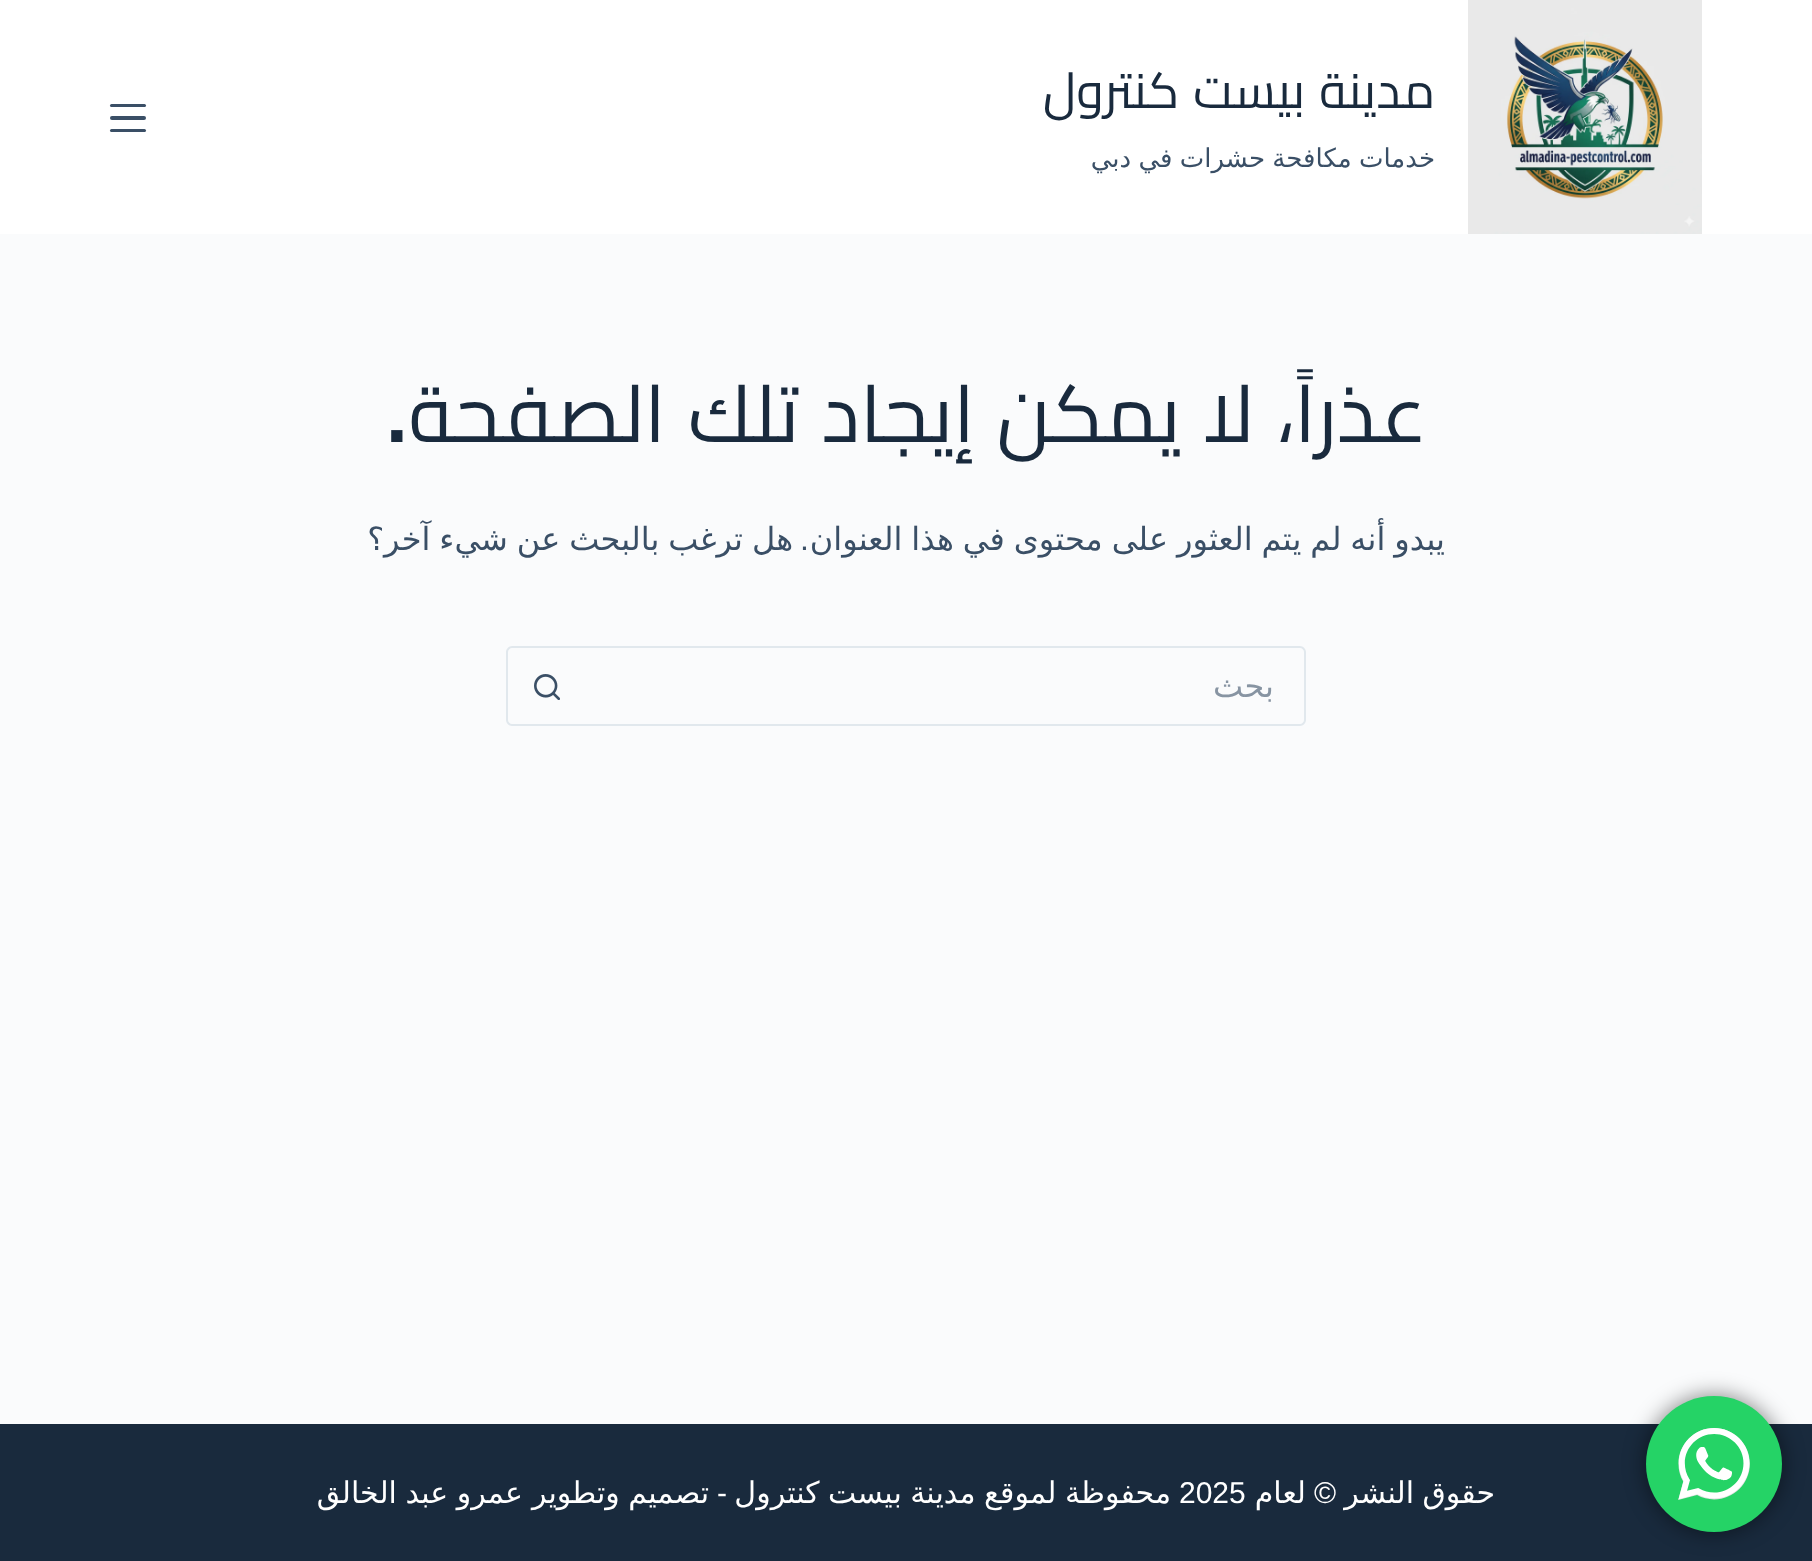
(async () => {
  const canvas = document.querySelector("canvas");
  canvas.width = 1812;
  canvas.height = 1561;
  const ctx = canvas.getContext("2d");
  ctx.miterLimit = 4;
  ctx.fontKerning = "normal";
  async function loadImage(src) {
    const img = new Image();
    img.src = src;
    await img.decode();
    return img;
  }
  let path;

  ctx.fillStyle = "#fafbfc";
  ctx.fillRect(0, 0, 1812, 1561);
  ctx.fillStyle = "#192a3d";
  ctx.fillRect(0, 1424, 1812, 137);
  ctx.fillStyle = "rgba(0, 0, 0, 0.5)";
  ctx.filter = "blur(11px)";
  ctx.beginPath();
  ctx.roundRect(1646, 1396, 136, 136, 68);
  ctx.fill();
  ctx.filter = "none";
  ctx.fillStyle = "#25d366";
  ctx.beginPath();
  ctx.arc(1714, 1464, 68, 0, Math.PI * 2);
  ctx.fill();
  ctx.drawImage(await loadImage("img/1.png"), 1678, 1428, 72, 72);
  ctx.fillStyle = "#ffffff";
  ctx.fillRect(0, 0, 1812, 234);
  ctx.drawImage(await loadImage("img/2.png"), 1468, 0, 234, 234);
  ctx.fillStyle = "#3a4f66";
  ctx.beginPath();
  ctx.roundRect(110, 104, 36, 3, 1.5);
  ctx.fill();
  ctx.beginPath();
  ctx.roundRect(110, 116, 36, 4, 2);
  ctx.fill();
  ctx.beginPath();
  ctx.roundRect(110, 129, 36, 3, 1.5);
  ctx.fill();
  ctx.fillStyle = "#e1e8ed";
  path = new Path2D("M586 646H1300C1303 646 1306 649 1306 652V720C1306 723 1303 726 1300 726H586ZM586 648H1300C1302 648 1304 650 1304 652V720C1304 722 1302 724 1300 724H586Z");
  ctx.fill(path, "evenodd");
  path = new Path2D("M512 646H586V726H512C509 726 506 723 506 720V652C506 649 509 646 512 646ZM512 648H586V724H512C510 724 508 722 508 720V652C508 650 510 648 512 648Z");
  ctx.fill(path, "evenodd");
  ctx.drawImage(await loadImage("img/3.png"), 534, 674, 26, 26);
  ctx.wordSpacing = "3px";
  ctx.direction = "rtl";
  ctx.font = "50px Cairo";
  ctx.fillStyle = "#192a3d";
  ctx.fillText("مدينة بيست كنترول", 1435, 108);
  ctx.wordSpacing = "-1px";
  ctx.font = "26px DejaVu Sans";
  ctx.fillStyle = "#3a4f66";
  ctx.fillText("خدمات مكافحة حشرات في دبي", 1435, 167);
  ctx.wordSpacing = "4.5px";
  ctx.font = "80px Cairo";
  ctx.fillStyle = "#192a3d";
  ctx.fillText("عذراً، لا يمكن إيجاد تلك الصفحة", 1427, 442);
  ctx.wordSpacing = "0px";
  ctx.font = "bold 80px Liberation Sans";
  ctx.fillText(".", 408, 442);
  ctx.wordSpacing = "-1.25px";
  ctx.font = "32px DejaVu Sans";
  ctx.fillStyle = "#3a4f66";
  ctx.fillText("يبدو أنه لم يتم العثور على محتوى في هذا العنوان", 1445, 550);
  ctx.wordSpacing = "0px";
  ctx.font = "32px Liberation Sans";
  ctx.fillText(".", 809, 550);
  ctx.wordSpacing = "-1.25px";
  ctx.font = "32px DejaVu Sans";
  ctx.fillText("هل ترغب بالبحث عن شيء آخر؟", 793, 550);
  ctx.wordSpacing = "0px";
  ctx.fillStyle = "#8794a2";
  ctx.fillText("بحث", 1274, 697);
  ctx.wordSpacing = "-1px";
  ctx.font = "30px DejaVu Sans";
  ctx.fillStyle = "#ffffff";
  ctx.fillText("حقوق النشر", 1495, 1503);
  ctx.wordSpacing = "0px";
  ctx.font = "30px Liberation Sans";
  ctx.fillText("©", 1336, 1503);
  ctx.font = "30px DejaVu Sans";
  ctx.fillText("لعام", 1306, 1503);
  ctx.direction = "ltr";
  ctx.font = "30px Liberation Sans";
  ctx.fillText("2025", 1179, 1503);
  ctx.wordSpacing = "-1px";
  ctx.direction = "rtl";
  ctx.font = "30px DejaVu Sans";
  ctx.fillText("محفوظة لموقع مدينة بيست كنترول", 1171, 1503);
  ctx.wordSpacing = "0px";
  ctx.font = "30px Liberation Sans";
  ctx.fillText("-", 727, 1503);
  ctx.wordSpacing = "-1px";
  ctx.font = "30px DejaVu Sans";
  ctx.fillText("تصميم وتطوير", 709, 1503);
  ctx.fillText("عمرو عبد الخالق", 523, 1503);
})();
